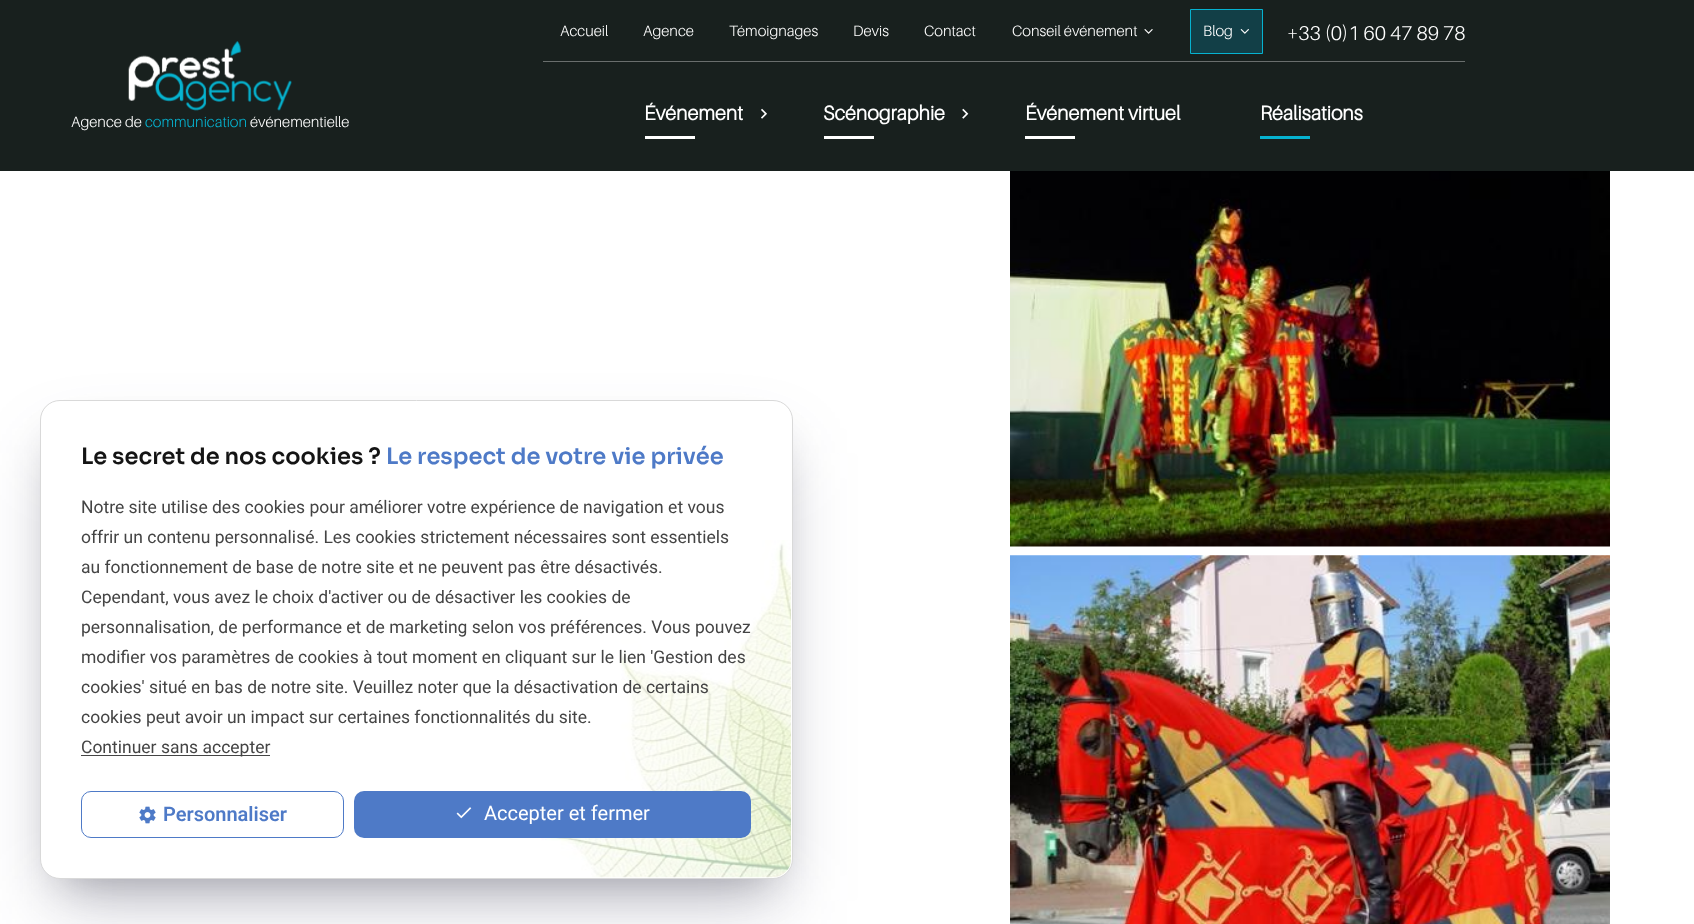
(async () => {
  const canvas = document.querySelector("canvas");
  canvas.width = 1694;
  canvas.height = 924;
  const ctx = canvas.getContext("2d");
  ctx.miterLimit = 4;
  ctx.fontKerning = "normal";
  async function loadImage(src) {
    const img = new Image();
    img.src = src;
    await img.decode();
    return img;
  }

  ctx.fillStyle = "#ffffff";
  ctx.fillRect(0, 0, 1694, 924);
  ctx.fillStyle = "#18201e";
  ctx.fillRect(0, 0, 1694, 171);
  ctx.drawImage(await loadImage("img/1.png"), 128, 41, 164, 70);
  ctx.fillStyle = "#696e6d";
  ctx.fillRect(543, 61, 922, 1);
  ctx.drawImage(await loadImage("img/2.png"), 1144, 29, 9, 5);
  ctx.fillStyle = "#123f47";
  ctx.beginPath();
  ctx.rect(1190.5, 9.5, 72, 44);
  ctx.fill();
  ctx.strokeStyle = "#06b2d0";
  ctx.stroke();
  ctx.drawImage(await loadImage("img/3.png"), 1240, 29, 9, 5);
  ctx.drawImage(await loadImage("img/4.png"), 761, 108, 6, 11);
  ctx.fillStyle = "#ffffff";
  ctx.fillRect(645, 136, 50, 3);
  ctx.drawImage(await loadImage("img/5.png"), 962, 108, 7, 11);
  for (const [x, y, w, h, color] of [
    [824, 136, 50, 3, "#ffffff"],
    [1025, 136, 50, 3, "#ffffff"],
    [1260, 136, 50, 3, "#06b2d0"],
  ]) {
    ctx.fillStyle = color;
    ctx.fillRect(x, y, w, h);
  }
  ctx.drawImage(await loadImage("img/6.png"), 1010, 171, 600, 376);
  ctx.drawImage(await loadImage("img/7.png"), 1010, 555, 600, 369);
  ctx.fillStyle = "rgba(0, 0, 0, 0.3)";
  ctx.filter = "blur(22.5px)";
  ctx.beginPath();
  ctx.rect(63, 445, 707, 434);
  ctx.fill();
  ctx.filter = "none";
  ctx.fillStyle = "rgba(50, 50, 93, 0.25)";
  ctx.filter = "blur(37.5px)";
  ctx.beginPath();
  ctx.roundRect(55, 453, 723, 448, 5);
  ctx.fill();
  ctx.filter = "none";
  ctx.fillStyle = "#ffffff";
  ctx.beginPath();
  ctx.roundRect(40.5, 400.5, 752, 478, 19.5);
  ctx.fill();
  ctx.strokeStyle = "#d9d9d9";
  ctx.stroke();
  ctx.fillStyle = "#444444";
  ctx.fillRect(81, 755, 189, 1);
  ctx.beginPath();
  ctx.roundRect(81.5, 791.5, 262, 46, 9.5);
  ctx.strokeStyle = "#4e7ac7";
  ctx.stroke();
  ctx.drawImage(await loadImage("img/8.png"), 139, 806, 17, 18);
  ctx.drawImage(await loadImage("img/10.png"), 541, 540, 250, 338);
  ctx.fillStyle = "#4e7ac7";
  ctx.beginPath();
  ctx.roundRect(354, 791, 397, 47, 10);
  ctx.fill();
  ctx.drawImage(await loadImage("img/9.png"), 456, 807, 16, 12);
  ctx.font = "300 15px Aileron";
  ctx.fillStyle = "#ffffff";
  ctx.fillText("Agence de", 71, 127);
  ctx.fillStyle = "#06b2d0";
  ctx.fillText("communication", 145, 127);
  ctx.fillStyle = "#ffffff";
  for (const [text, x, y] of [
    ["événementielle", 250, 127],
    ["Accueil", 560, 36],
    ["Agence", 643, 36],
    ["Témoignages", 729, 36],
    ["Devis", 853, 36],
    ["Contact", 924, 36],
    ["Conseil événement", 1012, 36],
    ["Blog", 1203, 36],
  ]) {
    ctx.fillText(text, x, y);
  }
  ctx.font = "300 20px Aileron";
  ctx.fillText("+33 (0)1 60 47 89 78", 1287, 40);
  ctx.font = "bold 20px Aileron";
  for (const [text, x, y] of [
    ["Événement", 644, 120],
    ["Scénographie", 823, 120],
    ["Événement virtuel", 1025, 120],
    ["Réalisations", 1260, 120],
  ]) {
    ctx.fillText(text, x, y);
  }
  ctx.font = "600 22.5px Sora";
  ctx.fillStyle = "#141414";
  ctx.fillText("Le secret de nos cookies ?", 81, 464);
  ctx.fillStyle = "#4e7ac7";
  ctx.fillText("Le respect de votre vie privée", 386, 464);
  ctx.font = "17.5px Roboto";
  ctx.fillStyle = "#444444";
  for (const [text, x, y] of [
    ["Notre site utilise des cookies pour améliorer votre expérience de navigation et vous", 81, 513],
    ["offrir un contenu personnalisé. Les cookies strictement nécessaires sont essentiels", 81, 543],
    ["au fonctionnement de base de notre site et ne peuvent pas être désactivés.", 81, 573],
    ["Cependant, vous avez le choix d'activer ou de désactiver les cookies de", 81, 603],
    ["personnalisation, de performance et de marketing selon vos préférences. Vous pouvez", 81, 633],
    ["modifier vos paramètres de cookies à tout moment en cliquant sur le lien 'Gestion des", 81, 663],
    ["cookies' situé en bas de notre site. Veuillez noter que la désactivation de certains", 81, 693],
    ["cookies peut avoir un impact sur certaines fonctionnalités du site.", 81, 723],
    ["Continuer sans accepter", 81, 753],
  ]) {
    ctx.fillText(text, x, y);
  }
  ctx.font = "600 20px Roboto";
  ctx.fillStyle = "#4e7ac7";
  ctx.fillText("Personnaliser", 163, 821);
  ctx.font = "20px Roboto";
  ctx.fillStyle = "#ffffff";
  ctx.fillText("Accepter et fermer", 484, 820);
})();
